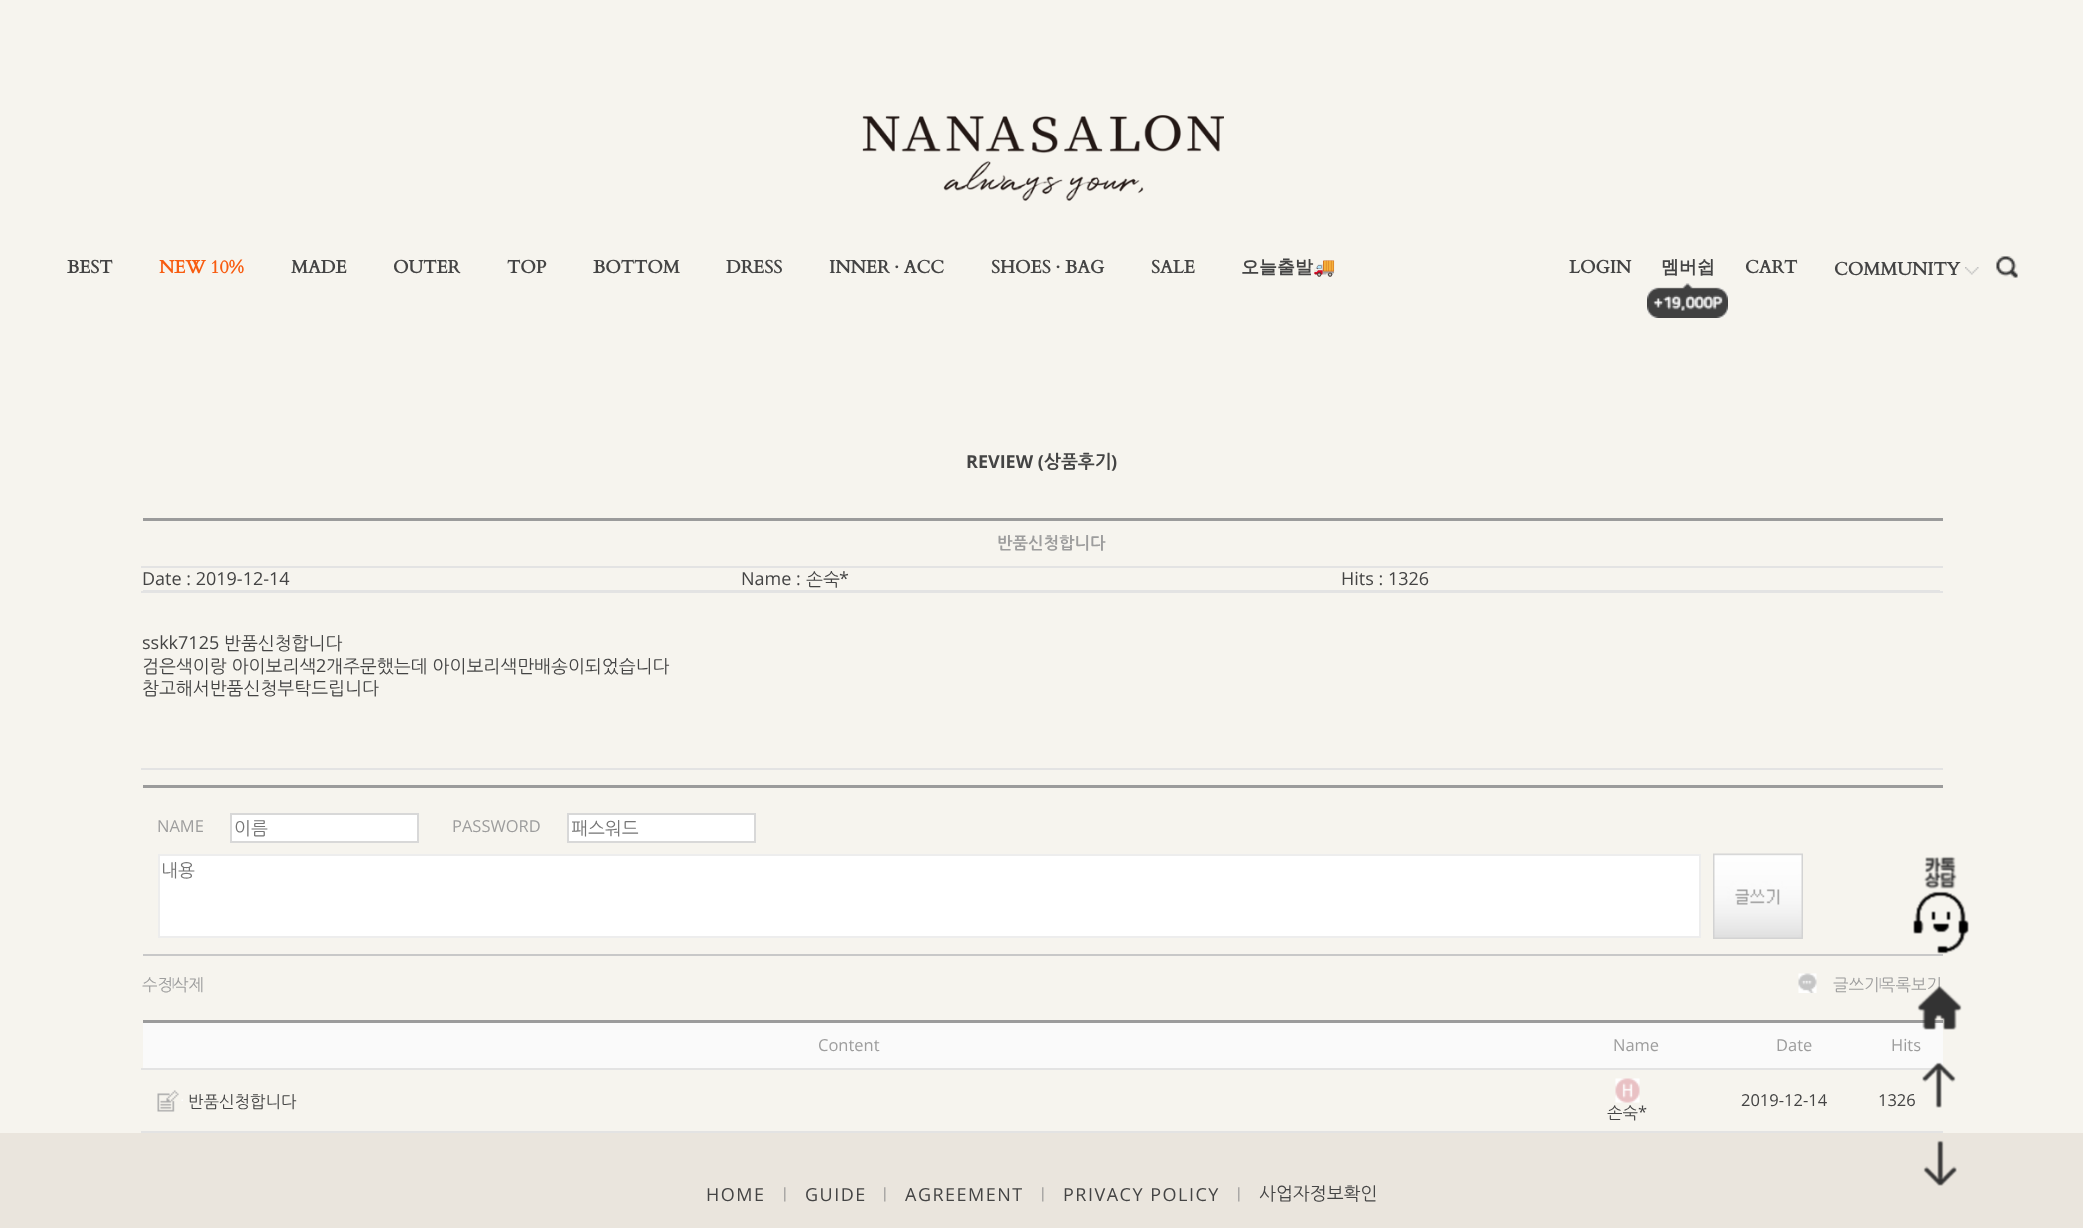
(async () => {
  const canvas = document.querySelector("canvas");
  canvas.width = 2083;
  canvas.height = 1228;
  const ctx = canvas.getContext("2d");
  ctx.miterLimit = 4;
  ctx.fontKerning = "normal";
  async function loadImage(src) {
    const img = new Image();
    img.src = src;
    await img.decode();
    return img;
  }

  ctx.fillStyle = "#f6f4ee";
  ctx.fillRect(0, 0, 2083, 1228);
  ctx.drawImage(await loadImage("img/1.png"), 862, 115, 362, 86);
  ctx.drawImage(await loadImage("img/2.png"), 1647, 283, 81, 35);
  ctx.drawImage(await loadImage("img/3.png"), 1965, 267, 14, 8);
  ctx.drawImage(await loadImage("img/4.png"), 1996, 256, 22, 22);
  for (const [x, y, w, h, color] of [
    [143, 518, 1800, 3, "#9b9b9b"],
    [141, 566, 1802, 2, "#e3e3e3"],
    [141, 591, 1802, 2, "#e3e3e3"],
    [143, 590, 1797, 1, "#e3e3e3"],
    [141, 768, 1802, 2, "#e3e3e3"],
    [143, 954, 1800, 2, "#c8c8c8"],
    [143, 785, 1800, 3, "#9b9b9b"],
  ]) {
    ctx.fillStyle = color;
    ctx.fillRect(x, y, w, h);
  }
  ctx.fillStyle = "#ffffff";
  ctx.beginPath();
  ctx.rect(231, 814, 187, 28);
  ctx.fill();
  ctx.strokeStyle = "#d8d8d8";
  ctx.lineWidth = 2;
  ctx.stroke();
  ctx.beginPath();
  ctx.rect(568, 814, 187, 28);
  ctx.fill();
  ctx.stroke();
  ctx.beginPath();
  ctx.rect(159, 855, 1541, 82);
  ctx.fill();
  ctx.strokeStyle = "#ededed";
  ctx.stroke();
  ctx.drawImage(await loadImage("img/5.png"), 1713, 853, 90, 86);
  ctx.drawImage(await loadImage("img/6.png"), 172, 978, 2, 11);
  ctx.drawImage(await loadImage("img/7.png"), 1798, 973, 19, 20);
  ctx.drawImage(await loadImage("img/6.png"), 1879, 978, 2, 11);
  for (const [x, y, w, h, color] of [
    [143, 1020, 1800, 3, "#9b9b9b"],
    [143, 1023, 1800, 45, "#fafafa"],
    [141, 1068, 1802, 2, "#e3e3e3"],
  ]) {
    ctx.fillStyle = color;
    ctx.fillRect(x, y, w, h);
  }
  ctx.drawImage(await loadImage("img/8.png"), 157, 1090, 22, 22);
  ctx.drawImage(await loadImage("img/9.png"), 181, 1099, 2, 2);
  ctx.fillRect(141, 1131, 1802, 2);
  ctx.drawImage(await loadImage("img/10.png"), 1615, 1078, 25, 25);
  ctx.drawImage(await loadImage("img/11.png"), 1913, 856, 56, 98);
  ctx.drawImage(await loadImage("img/13.png"), 1922, 1062, 34, 46);
  ctx.fillStyle = "#eae5dd";
  ctx.fillRect(0, 1133, 2083, 95);
  ctx.drawImage(await loadImage("img/14.png"), 1923, 1140, 34, 46);
  ctx.font = "bold 18px Cardo";
  ctx.fillStyle = "#444444";
  ctx.fillText("BEST", 67, 273);
  ctx.fillStyle = "#f85c10";
  ctx.fillText("NEW 10%", 159, 273);
  ctx.fillStyle = "#444444";
  for (const [text, x, y] of [
    ["MADE", 291, 273],
    ["OUTER", 393, 273],
    ["TOP", 507, 273],
    ["BOTTOM", 593, 273],
    ["DRESS", 726, 273],
    ["INNER · ACC", 829, 273],
    ["SHOES · BAG", 991, 273],
    ["SALE", 1151, 273],
  ]) {
    ctx.fillText(text, x, y);
  }
  ctx.font = "bold 18px WenQuanYi Zen Hei";
  ctx.fillText("오늘출발", 1241, 273);
  ctx.font = "bold 18px Noto Color Emoji";
  ctx.fillText("🚚", 1313, 273);
  ctx.font = "bold 18px Cardo";
  ctx.fillText("LOGIN", 1569, 273);
  ctx.font = "bold 18px WenQuanYi Zen Hei";
  ctx.fillText("멤버쉽", 1661, 273);
  ctx.font = "bold 18px Cardo";
  ctx.fillText("CART", 1745, 273);
  ctx.fillText("COMMUNITY", 1834, 275);
  ctx.font = "bold 18px Open Sans";
  ctx.fillText("REVIEW (", 966, 468);
  ctx.font = "bold 18px NanumGothic";
  ctx.fillText("상품후기", 1044, 468);
  ctx.font = "bold 18px Open Sans";
  ctx.fillText(")", 1111, 468);
  ctx.font = "bold 16.5px NanumGothic";
  ctx.fillStyle = "#9d9d9d";
  ctx.fillText("반품신청합니다", 997, 549);
  ctx.font = "18px Open Sans";
  ctx.fillStyle = "#444444";
  ctx.fillText("Date : 2019-12-14", 142, 585);
  ctx.fillText("Name :", 741, 585);
  ctx.font = "18px 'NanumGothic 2'";
  ctx.fillText("손숙", 806, 585);
  ctx.font = "18px Open Sans";
  for (const [text, x, y] of [
    ["*", 839, 585],
    ["Hits : 1326", 1341, 585],
    ["sskk7125", 142, 649],
  ]) {
    ctx.fillText(text, x, y);
  }
  ctx.font = "18px 'NanumGothic 2'";
  ctx.fillText("반품신청합니다", 224, 649);
  ctx.fillText("검은색이랑 아이보리색", 142, 672);
  ctx.font = "18px Open Sans";
  ctx.fillText("2", 316, 672);
  ctx.font = "18px 'NanumGothic 2'";
  ctx.fillText("개주문했는데 아이보리색만배송이되었습니다", 326, 672);
  ctx.fillText("참고해서반품신청부탁드립니다", 142, 694);
  ctx.font = "16.5px Open Sans";
  ctx.fillStyle = "#9d9d9d";
  ctx.fillText("NAME", 157, 832);
  ctx.font = "18px 'NanumGothic 2'";
  ctx.fillStyle = "#757575";
  ctx.fillText("이름", 234, 834);
  ctx.font = "16.5px Open Sans";
  ctx.fillStyle = "#9d9d9d";
  ctx.fillText("PASSWORD", 452, 832);
  ctx.save();
  ctx.beginPath();
  ctx.rect(572, 815, 180, 25);
  ctx.clip();
  ctx.font = "18px 'NanumGothic 2'";
  ctx.fillStyle = "#757575";
  ctx.fillText("패스워드", 571, 834);
  ctx.restore();
  ctx.font = "18px 'NanumGothic 2'";
  ctx.fillStyle = "#757575";
  ctx.fillText("내용", 161, 876);
  ctx.font = "16.5px 'NanumGothic 2'";
  ctx.fillStyle = "#9d9d9d";
  for (const [text, x, y] of [
    ["수정", 142, 990],
    ["삭제", 173, 990],
    ["글쓰기", 1833, 990],
    ["목록보기", 1880, 990],
  ]) {
    ctx.fillText(text, x, y);
  }
  ctx.font = "16.5px Open Sans";
  for (const [text, x, y] of [
    ["Content", 818, 1051],
    ["Name", 1613, 1051],
    ["Date", 1776, 1051],
    ["Hits", 1891, 1051],
  ]) {
    ctx.fillText(text, x, y);
  }
  ctx.font = "16.5px 'NanumGothic 2'";
  ctx.fillStyle = "#444444";
  ctx.fillText("반품신청합니다", 188, 1107);
  ctx.font = "16.5px Open Sans";
  ctx.fillText("2019-12-14", 1741, 1106);
  ctx.fillText("1326", 1878, 1106);
  ctx.font = "16.5px 'NanumGothic 2'";
  ctx.fillText("손숙", 1607, 1118);
  ctx.font = "16.5px Open Sans";
  ctx.fillText("*", 1638, 1118);
  ctx.drawImage(await loadImage("img/12.png"), 1917, 986, 45, 44);
  ctx.letterSpacing = "1.5px";
  ctx.font = "18px Open Sans";
  ctx.fillText("HOME", 706, 1201);
  ctx.font = "14px Open Sans";
  ctx.fillStyle = "#8a8a8a";
  ctx.fillText("|", 781, 1198);
  ctx.font = "18px Open Sans";
  ctx.fillStyle = "#444444";
  ctx.fillText("GUIDE", 805, 1201);
  ctx.font = "14px Open Sans";
  ctx.fillStyle = "#8a8a8a";
  ctx.fillText("|", 881, 1198);
  ctx.font = "18px Open Sans";
  ctx.fillStyle = "#444444";
  ctx.fillText("AGREEMENT", 905, 1201);
  ctx.font = "14px Open Sans";
  ctx.fillStyle = "#8a8a8a";
  ctx.fillText("|", 1039, 1198);
  ctx.font = "18px Open Sans";
  ctx.fillStyle = "#444444";
  ctx.fillText("PRIVACY POLICY", 1063, 1201);
  ctx.font = "14px Open Sans";
  ctx.fillStyle = "#8a8a8a";
  ctx.fillText("|", 1235, 1198);
  ctx.letterSpacing = "0px";
  ctx.font = "18px NanumGothic";
  ctx.fillStyle = "#444444";
  ctx.fillText("사업자정보확인", 1259, 1200);
})();
